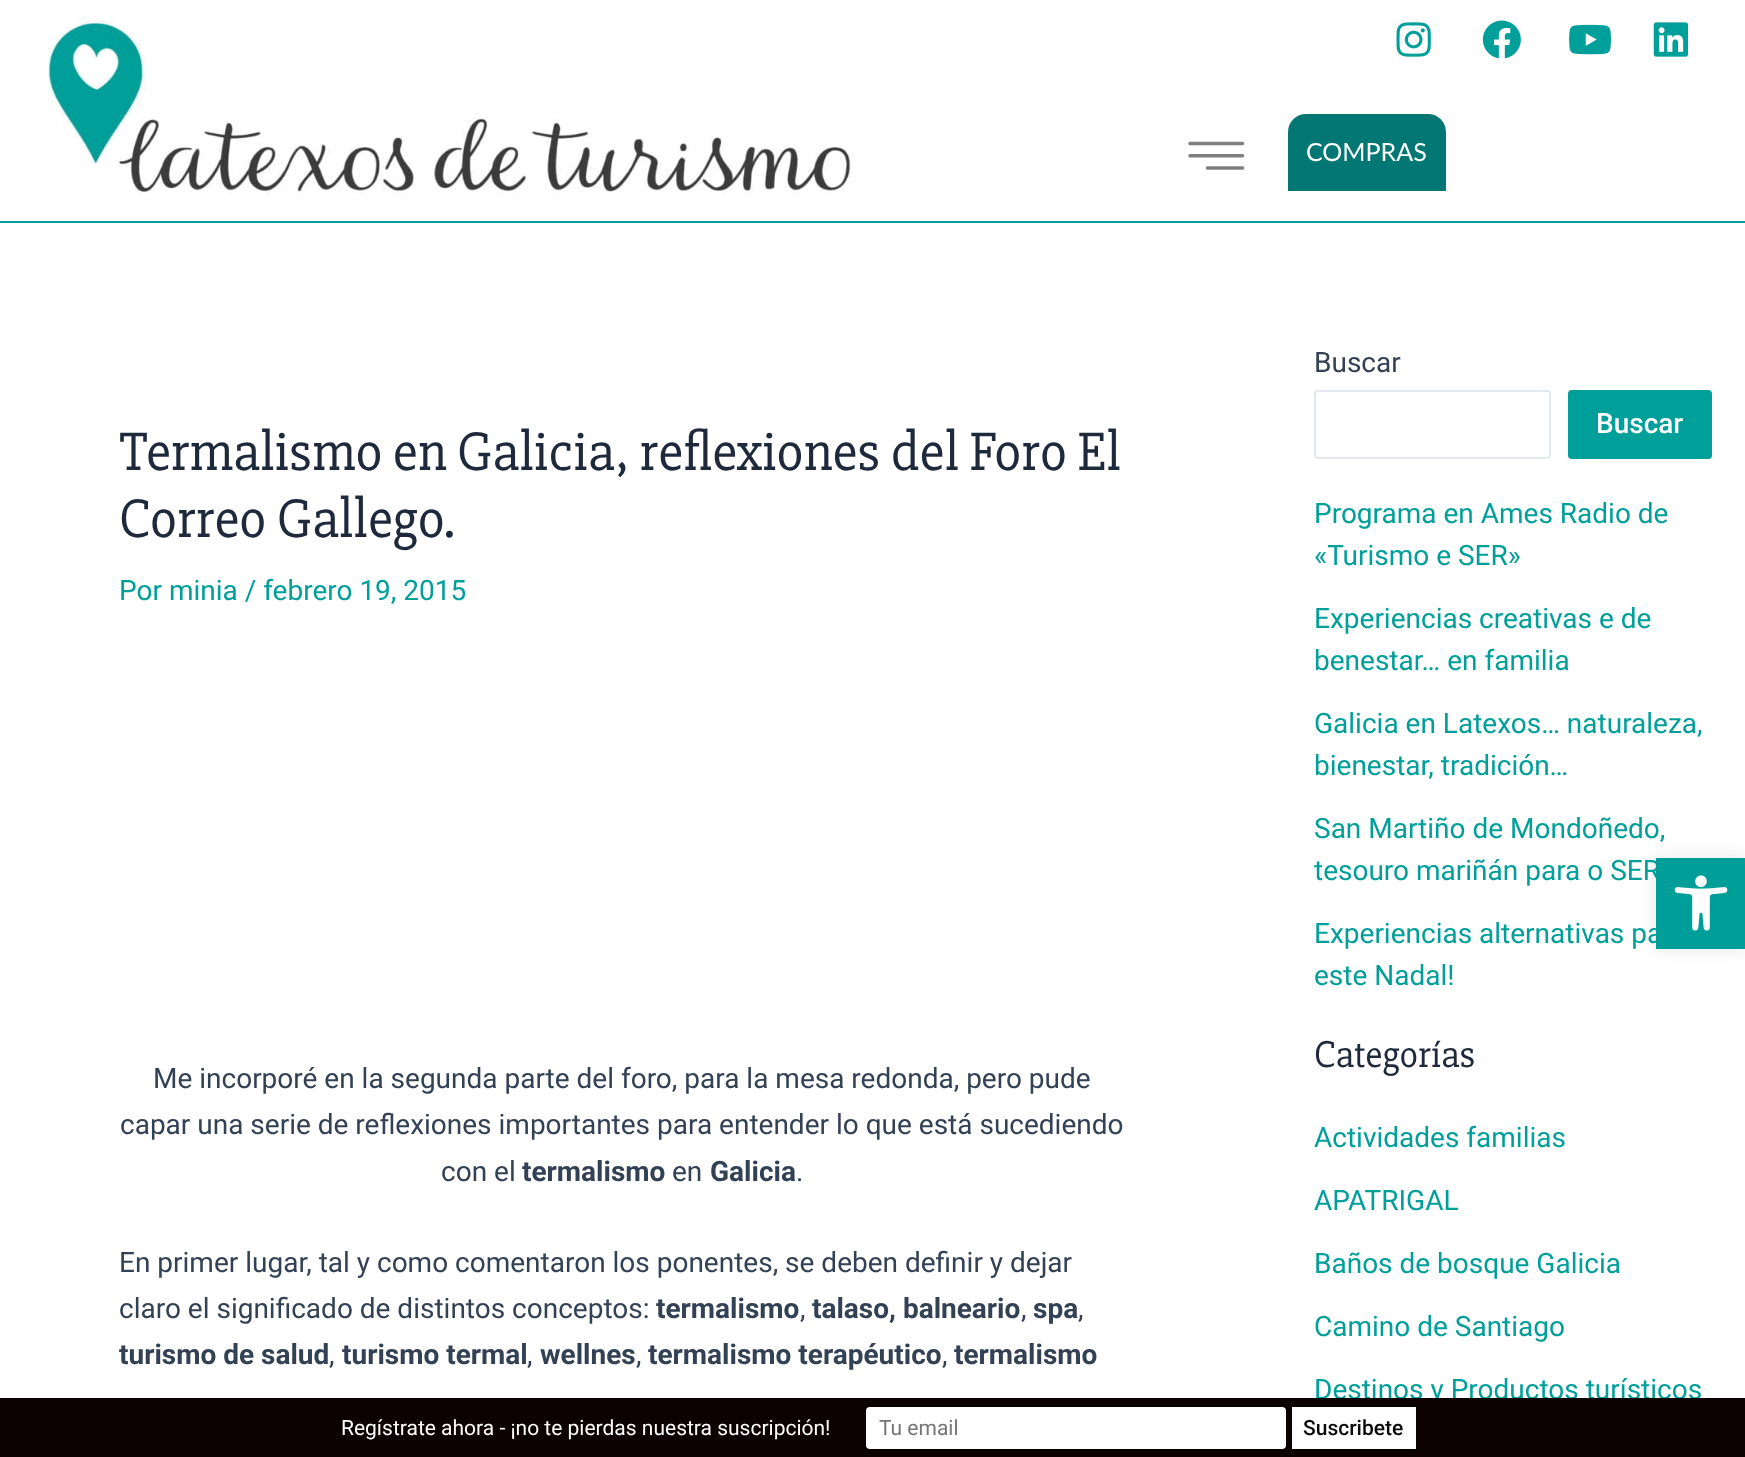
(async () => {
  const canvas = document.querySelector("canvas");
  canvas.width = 1745;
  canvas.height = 1457;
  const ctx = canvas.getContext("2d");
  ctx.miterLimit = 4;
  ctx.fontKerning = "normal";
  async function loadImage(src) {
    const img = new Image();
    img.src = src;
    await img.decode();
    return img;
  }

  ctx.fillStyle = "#ffffff";
  ctx.fillRect(0, 0, 1745, 1457);
  ctx.fillStyle = "#009f9a";
  ctx.fillRect(0, 221, 1745, 2);
  ctx.drawImage(await loadImage("img/1.png"), 47, 20, 806, 176);
  ctx.drawImage(await loadImage("img/2.png"), 1396, 22, 35, 35);
  ctx.drawImage(await loadImage("img/3.png"), 1482, 20, 39, 39);
  ctx.drawImage(await loadImage("img/4.png"), 1569, 24, 42, 31);
  ctx.drawImage(await loadImage("img/5.png"), 1653, 22, 36, 35);
  ctx.drawImage(await loadImage("img/6.png"), 1188, 141, 57, 29);
  ctx.fillStyle = "#027773";
  ctx.beginPath();
  ctx.roundRect(1288, 114, 158, 77, [18, 18, 0, 0]);
  ctx.fill();
  ctx.beginPath();
  ctx.roundRect(1315, 391, 235, 67, 3);
  ctx.strokeStyle = "#e2e8f0";
  ctx.lineWidth = 2;
  ctx.stroke();
  ctx.fillStyle = "#009f9a";
  ctx.beginPath();
  ctx.roundRect(1568, 390, 144, 69, 4);
  ctx.fill();
  ctx.fillStyle = "rgba(0, 0, 0, 0.1)";
  ctx.filter = "blur(9px)";
  ctx.beginPath();
  ctx.rect(1656, 858, 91, 91);
  ctx.fill();
  ctx.filter = "none";
  ctx.font = "25px Lato";
  ctx.fillStyle = "#ffffff";
  ctx.fillText("COMPRAS", 1306, 161);
  ctx.font = "56px 'Slabo 27px'";
  ctx.fillStyle = "#1e293b";
  ctx.fillText("Termalismo en Galicia, reflexiones del Foro El", 119, 470);
  ctx.fillText("Correo Gallego.", 119, 537);
  ctx.font = "28px Roboto";
  ctx.fillStyle = "#009f9a";
  ctx.fillText("Por minia / febrero 19, 2015", 119, 600);
  ctx.fillStyle = "#334155";
  for (const [text, x, y] of [
    ["Me incorporé en la segunda parte del foro, para la mesa redonda, pero pude", 153, 1088],
    ["capar una serie de reflexiones importantes para entender lo que está sucediendo", 120, 1134],
    ["con el", 441, 1181],
  ]) {
    ctx.fillText(text, x, y);
  }
  ctx.font = "bold 28px Roboto";
  ctx.fillText("termalismo", 522, 1181);
  ctx.font = "28px Roboto";
  ctx.fillText("en", 672, 1181);
  ctx.font = "bold 28px Roboto";
  ctx.fillText("Galicia", 710, 1181);
  ctx.font = "28px Roboto";
  for (const [text, x, y] of [
    [".", 796, 1181],
    ["En primer lugar, tal y como comentaron los ponentes, se deben definir y dejar", 119, 1272],
    ["claro el significado de distintos conceptos:", 119, 1318],
  ]) {
    ctx.fillText(text, x, y);
  }
  ctx.font = "bold 28px Roboto";
  ctx.fillText("termalismo", 656, 1318);
  ctx.font = "28px Roboto";
  ctx.fillText(",", 800, 1318);
  ctx.font = "bold 28px Roboto";
  ctx.fillText("talaso, balneario", 812, 1318);
  ctx.font = "28px Roboto";
  ctx.fillText(",", 1021, 1318);
  ctx.font = "bold 28px Roboto";
  ctx.fillText("spa", 1033, 1318);
  ctx.font = "28px Roboto";
  ctx.fillText(",", 1078, 1318);
  ctx.font = "bold 28px Roboto";
  ctx.fillText("turismo de salud", 119, 1364);
  ctx.font = "28px Roboto";
  ctx.fillText(",", 329, 1364);
  ctx.font = "bold 28px Roboto";
  ctx.fillText("turismo termal", 342, 1364);
  ctx.font = "28px Roboto";
  ctx.fillText(",", 527, 1364);
  ctx.font = "bold 28px Roboto";
  ctx.fillText("wellnes", 540, 1364);
  ctx.font = "28px Roboto";
  ctx.fillText(",", 636, 1364);
  ctx.font = "bold 28px Roboto";
  ctx.fillText("termalismo terapéutico", 648, 1364);
  ctx.font = "28px Roboto";
  ctx.fillText(",", 942, 1364);
  ctx.font = "bold 28px Roboto";
  ctx.fillText("termalismo", 954, 1364);
  ctx.font = "28px Roboto";
  ctx.fillText("Buscar", 1314, 372);
  ctx.font = "500 28px Roboto";
  ctx.fillStyle = "#ffffff";
  ctx.fillText("Buscar", 1596, 433);
  ctx.font = "28px Roboto";
  ctx.fillStyle = "#009f9a";
  for (const [text, x, y] of [
    ["Programa en Ames Radio de", 1314, 523],
    ["«Turismo e SER»", 1314, 565],
    ["Experiencias creativas e de", 1314, 628],
    ["benestar… en familia", 1314, 670],
    ["Galicia en Latexos… naturaleza,", 1314, 733],
    ["bienestar, tradición…", 1314, 775],
    ["San Martiño de Mondoñedo,", 1314, 838],
    ["tesouro mariñán para o SER", 1314, 880],
    ["Experiencias alternativas pa", 1314, 943],
    ["este Nadal!", 1314, 985],
  ]) {
    ctx.fillText(text, x, y);
  }
  ctx.font = "38.5px 'Slabo 27px'";
  ctx.fillStyle = "#1e293b";
  ctx.fillText("Categorías", 1314, 1067);
  ctx.font = "28px Roboto";
  ctx.fillStyle = "#009f9a";
  for (const [text, x, y] of [
    ["Actividades familias", 1314, 1147],
    ["APATRIGAL", 1314, 1210],
    ["Baños de bosque Galicia", 1314, 1273],
    ["Camino de Santiago", 1314, 1336],
    ["Destinos y Productos turísticos", 1314, 1399],
  ]) {
    ctx.fillText(text, x, y);
  }
  ctx.fillStyle = "#009e99";
  ctx.fillRect(1656, 858, 89, 91);
  ctx.drawImage(await loadImage("img/7.png"), 1674, 875, 54, 56);
  ctx.fillStyle = "#0a0100";
  ctx.fillRect(0, 1398, 1745, 59);
  ctx.font = "21px Roboto";
  ctx.fillStyle = "#ffffff";
  ctx.fillText("Regístrate ahora - ¡no te pierdas nuestra suscripción!", 341, 1435);
  ctx.beginPath();
  ctx.roundRect(867, 1408, 418, 40, 3);
  ctx.fill();
  ctx.strokeStyle = "#ffffff";
  ctx.stroke();
  ctx.fillStyle = "#757575";
  ctx.fillText("Tu email", 879, 1435);
  ctx.fillStyle = "#ffffff";
  ctx.fillRect(1292, 1407, 124, 42);
  ctx.font = "500 21px Roboto";
  ctx.fillStyle = "#0a0a0a";
  ctx.fillText("Suscribete", 1303, 1435);
})();
